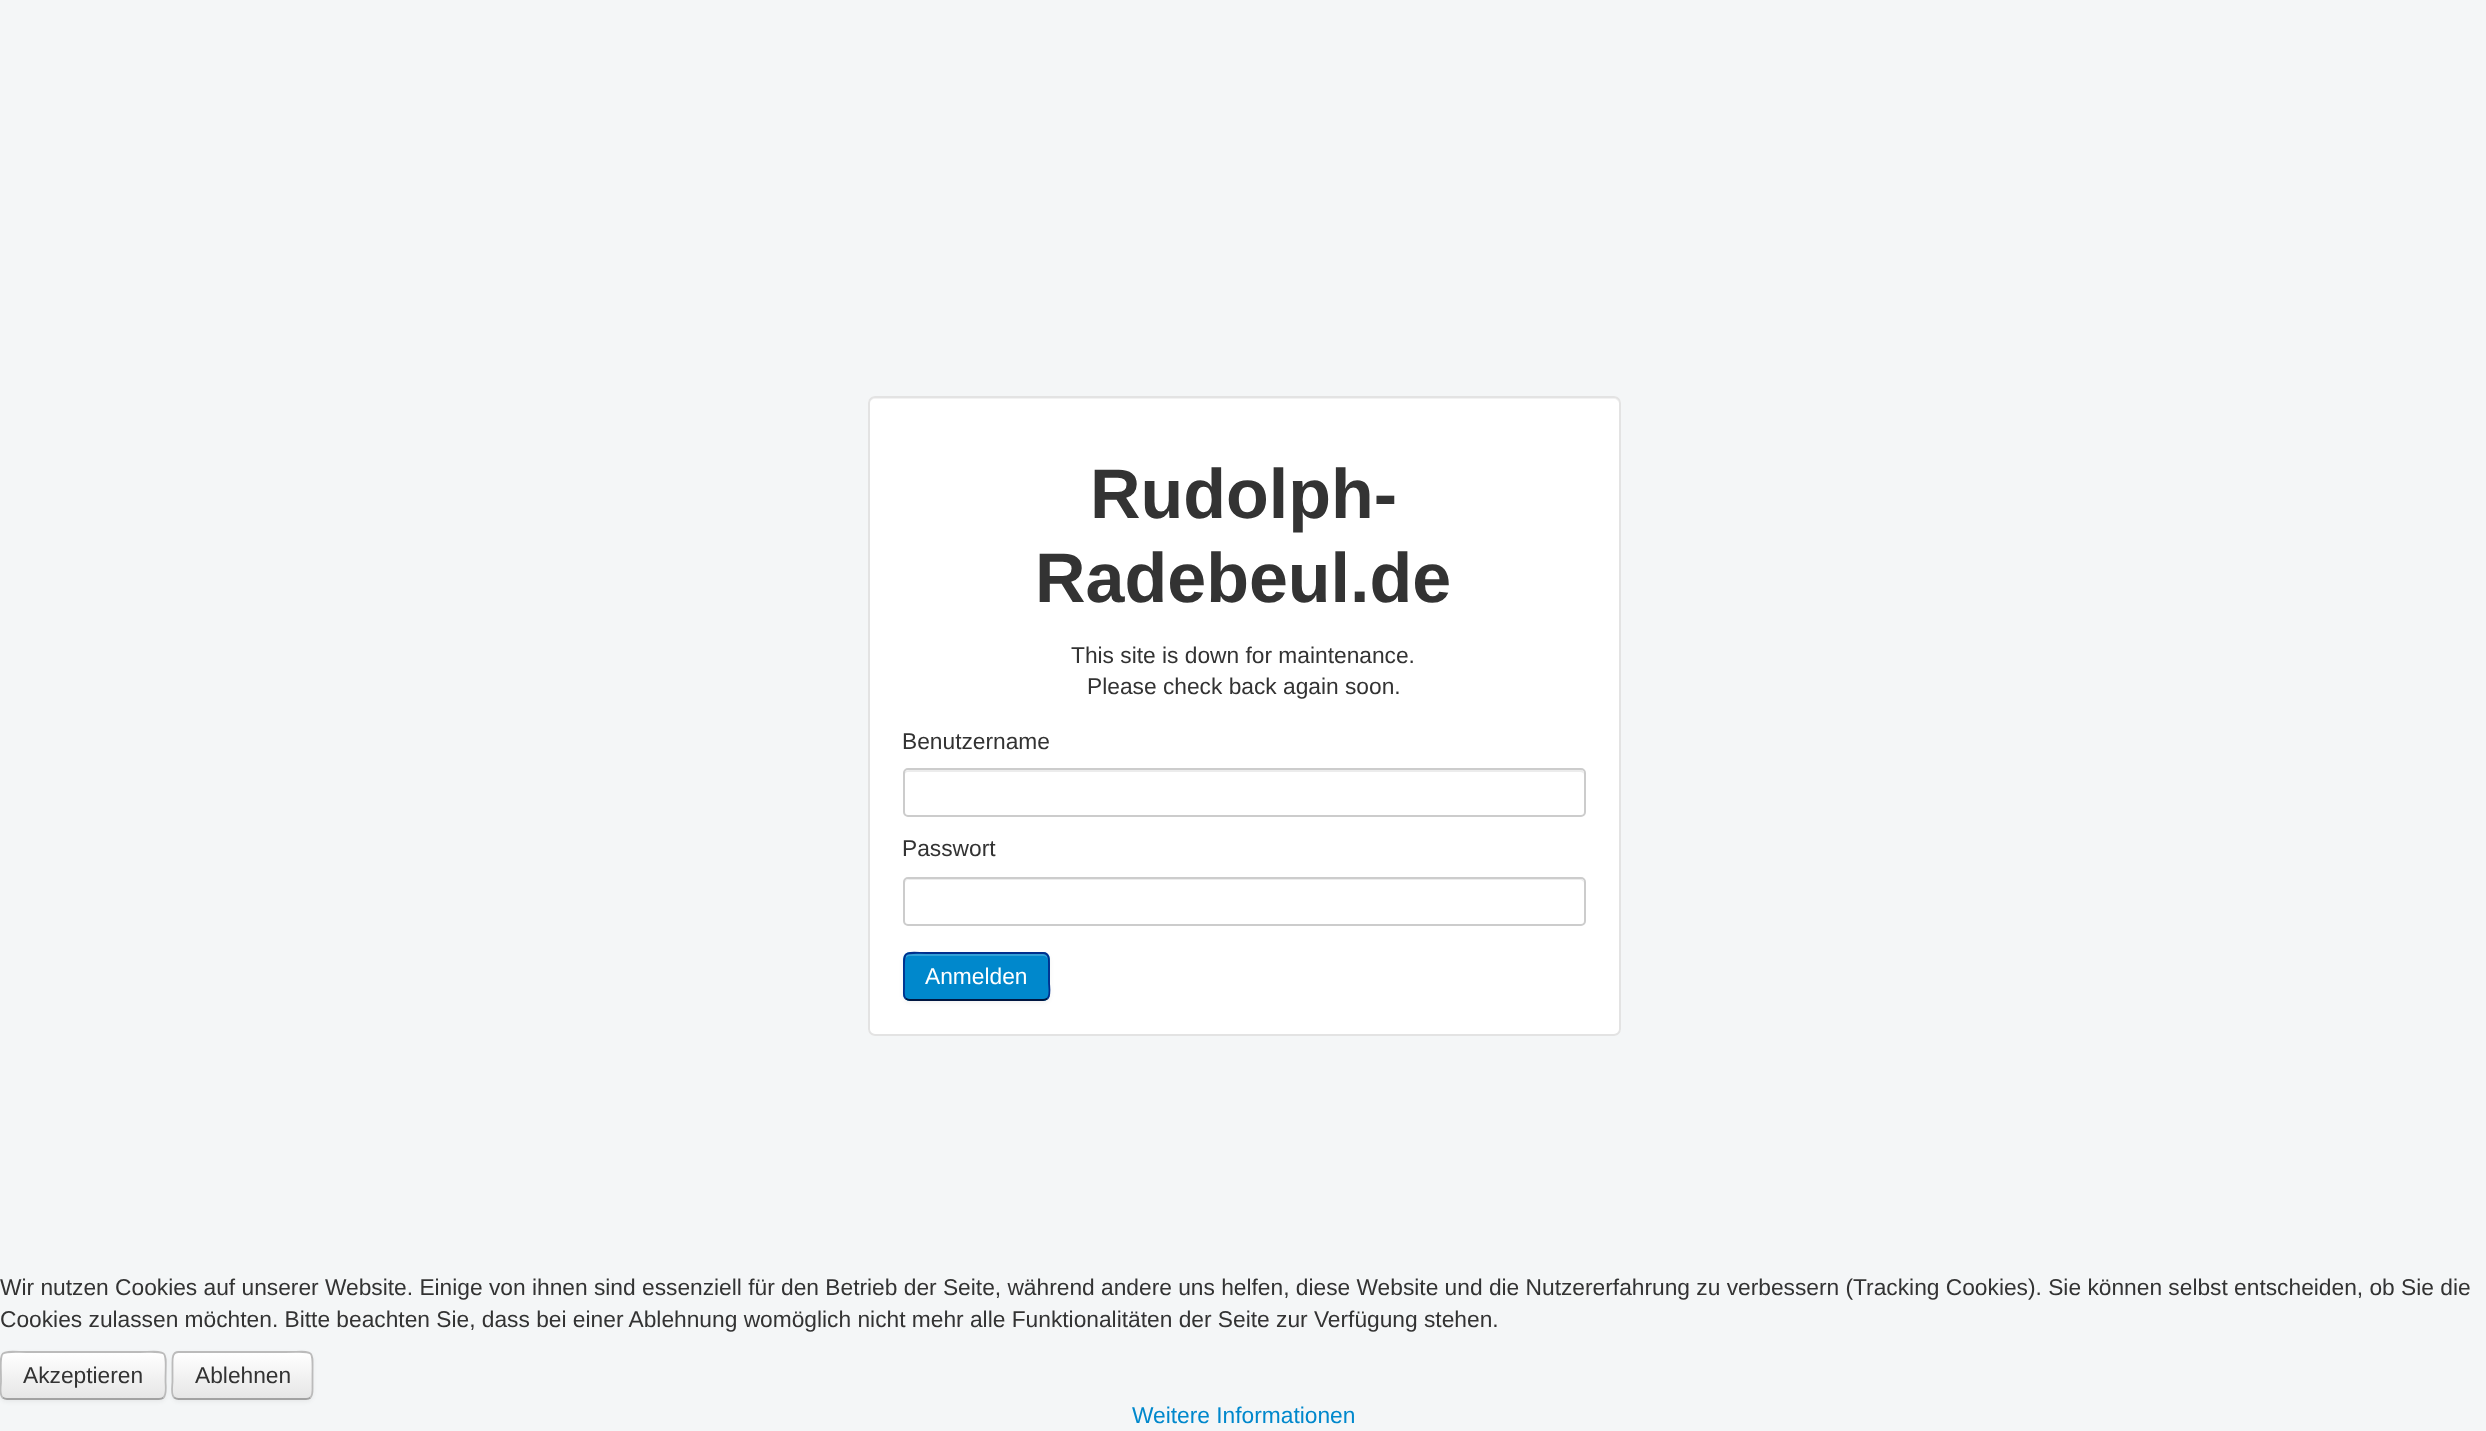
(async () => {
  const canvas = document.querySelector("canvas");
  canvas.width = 2486;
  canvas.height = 1431;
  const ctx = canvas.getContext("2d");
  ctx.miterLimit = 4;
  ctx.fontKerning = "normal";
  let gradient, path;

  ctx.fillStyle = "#f4f6f7";
  ctx.fillRect(0, 0, 2486, 1431);
  ctx.fillStyle = "#ffffff";
  ctx.beginPath();
  ctx.roundRect(868, 396, 753, 640, 7);
  ctx.fill();
  ctx.fillStyle = "#f2f2f2";
  path = new Path2D("M875 399H1614C1616 399 1619 401 1619 404C1619 401 1618 397 1614 397H875C871 397 870 401 870 404C870 401 872 399 875 399Z");
  ctx.fill(path);
  ctx.beginPath();
  ctx.roundRect(869, 397, 751, 638, 6);
  ctx.strokeStyle = "#e3e3e3";
  ctx.lineWidth = 2;
  ctx.stroke();
  ctx.fillStyle = "#ececec";
  path = new Path2D("M908 772H1580C1582 772 1584 773 1584 775C1584 772 1583 770 1580 770H909L906 771L905 772V775C905 773 906 772 908 772Z");
  ctx.fill(path);
  ctx.beginPath();
  ctx.roundRect(904, 769, 681, 47, 4);
  ctx.strokeStyle = "#cccccc";
  ctx.stroke();
  path = new Path2D("M908 880H1580C1582 880 1584 882 1584 884C1584 881 1583 879 1580 879H909L906 880L905 881V884C905 882 906 880 908 880Z");
  ctx.fill(path);
  ctx.beginPath();
  ctx.roundRect(904, 878, 681, 47, 4);
  ctx.stroke();
  ctx.fillStyle = "rgba(0, 0, 0, 0.05)";
  ctx.filter = "blur(2px)";
  ctx.beginPath();
  ctx.roundRect(903, 954, 147, 49, 7);
  ctx.fill();
  ctx.filter = "none";
  ctx.fillStyle = "#0088cc";
  ctx.beginPath();
  ctx.roundRect(903, 952, 147, 49, 7);
  ctx.fill();
  ctx.fillStyle = "#33a0d6";
  path = new Path2D("M910 956H1043C1046 956 1048 958 1048 961V959C1048 956 1046 954 1043 954H910C907 954 905 956 905 959V961C905 958 907 956 910 956Z");
  ctx.fill(path);
  path = new Path2D("M1047.5 998.5C1046 999.5 1044.5 1000 1043 1000H910C908.5 1000 907 999.5 905.5 998.5");
  ctx.strokeStyle = "#001641";
  ctx.lineWidth = 1.8;
  ctx.stroke(path);
  path = new Path2D("M905.5 998.5C903 995.5 904 991.5 904 988V976.5C904 948 901 953 932 953H1043C1049.5 953 1049 960 1049 965V982.5C1049 986 1051 995 1047.5 998.5");
  ctx.strokeStyle = "#002f8d";
  ctx.stroke(path);
  ctx.fillStyle = "rgba(0, 0, 0, 0.05)";
  ctx.filter = "blur(2px)";
  ctx.beginPath();
  ctx.roundRect(0, 1353, 166, 49, 7);
  ctx.fill();
  ctx.filter = "none";
  ctx.fillStyle = "#f5f5f5";
  ctx.beginPath();
  ctx.roundRect(0, 1351, 166, 49, 7);
  ctx.fill();
  ctx.save();
  ctx.beginPath();
  ctx.roundRect(0, 1351, 166, 49, 7);
  ctx.clip();
  gradient = ctx.createLinearGradient(83, 1353, 83, 1398);
  gradient.addColorStop(0, "#ffffff");
  gradient.addColorStop(1, "#e6e6e6");
  ctx.fillStyle = gradient;
  ctx.fillRect(0, 1353, 166, 45);
  ctx.restore();
  ctx.fillStyle = "rgba(255, 255, 255, 0.2)";
  path = new Path2D("M7 1354H159C166 1354 164 1368 164 1372V1396C165 1395 165 1394 165 1393V1358C165 1355 163 1353 160 1353H7C4 1353 2 1355 2 1358V1360C2 1357 4 1354 7 1354Z");
  ctx.fill(path);
  path = new Path2D("M163.5 1397.5C162.5 1398.5 161 1399 159 1399H7C5.5 1399 4 1398.5 2.5 1397.5");
  ctx.strokeStyle = "#a2a2a2";
  ctx.stroke(path);
  path = new Path2D("M2.5 1397.5C-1 1394 1 1385 1 1381.5C1 1346.5-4.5 1352 32.5 1352H134C171 1352 165.5 1346.5 165.5 1381.5C165.5 1385 167 1394 163.5 1397.5");
  ctx.strokeStyle = "#bbbbbb";
  ctx.stroke(path);
  ctx.fillStyle = "rgba(0, 0, 0, 0.05)";
  ctx.filter = "blur(2px)";
  ctx.beginPath();
  ctx.roundRect(172, 1353, 141, 49, 7);
  ctx.fill();
  ctx.filter = "none";
  ctx.fillStyle = "#f5f5f5";
  ctx.beginPath();
  ctx.roundRect(172, 1351, 141, 49, 7);
  ctx.fill();
  ctx.save();
  ctx.beginPath();
  ctx.roundRect(172, 1351, 141, 49, 7);
  ctx.clip();
  gradient = ctx.createLinearGradient(242, 1353, 242, 1398);
  gradient.addColorStop(0, "#ffffff");
  gradient.addColorStop(1, "#e6e6e6");
  ctx.fillStyle = gradient;
  ctx.fillRect(172, 1353, 141, 45);
  ctx.restore();
  path = new Path2D("M310.5 1397.5C309.5 1398.5 308 1399 306 1399H178.5C177 1399 175.5 1398.5 174 1397.5");
  ctx.strokeStyle = "#a2a2a2";
  ctx.stroke(path);
  path = new Path2D("M174 1397.5C170.5 1394 172.5 1385 172.5 1381.5V1364C172.5 1359 172 1352 178.5 1352H285C315.5 1352 312.5 1347.5 312.5 1375.5V1387C312.5 1390.5 313 1394.5 310.5 1397.5");
  ctx.strokeStyle = "#bbbbbb";
  ctx.stroke(path);
  ctx.font = "bold 70px Liberation Sans";
  ctx.fillStyle = "#333333";
  ctx.fillText("Rudolph-", 1090, 518);
  ctx.fillText("Radebeul.de", 1035, 602);
  ctx.font = "22.75px Liberation Sans";
  for (const [text, x, y] of [
    ["This site is down for maintenance.", 1071, 663],
    ["Please check back again soon.", 1087, 694],
    ["Benutzername", 902, 749],
    ["Passwort", 902, 856],
  ]) {
    ctx.fillText(text, x, y);
  }
  ctx.fillStyle = "#ffffff";
  ctx.fillText("Anmelden", 925, 984);
  ctx.fillStyle = "#333333";
  for (const [text, x, y] of [
    ["Wir nutzen Cookies auf unserer Website. Einige von ihnen sind essenziell für den Betrieb der Seite, während andere uns helfen, diese Website und die Nutzererfahrung zu verbessern (Tracking Cookies). Sie können selbst entscheiden, ob Sie die", 0, 1295],
    ["Cookies zulassen möchten. Bitte beachten Sie, dass bei einer Ablehnung womöglich nicht mehr alle Funktionalitäten der Seite zur Verfügung stehen.", 0, 1327],
    ["Akzeptieren", 23, 1383],
    ["Ablehnen", 195, 1383],
  ]) {
    ctx.fillText(text, x, y);
  }
  ctx.fillStyle = "#0088cc";
  ctx.fillText("Weitere Informationen", 1132, 1423);
})();
